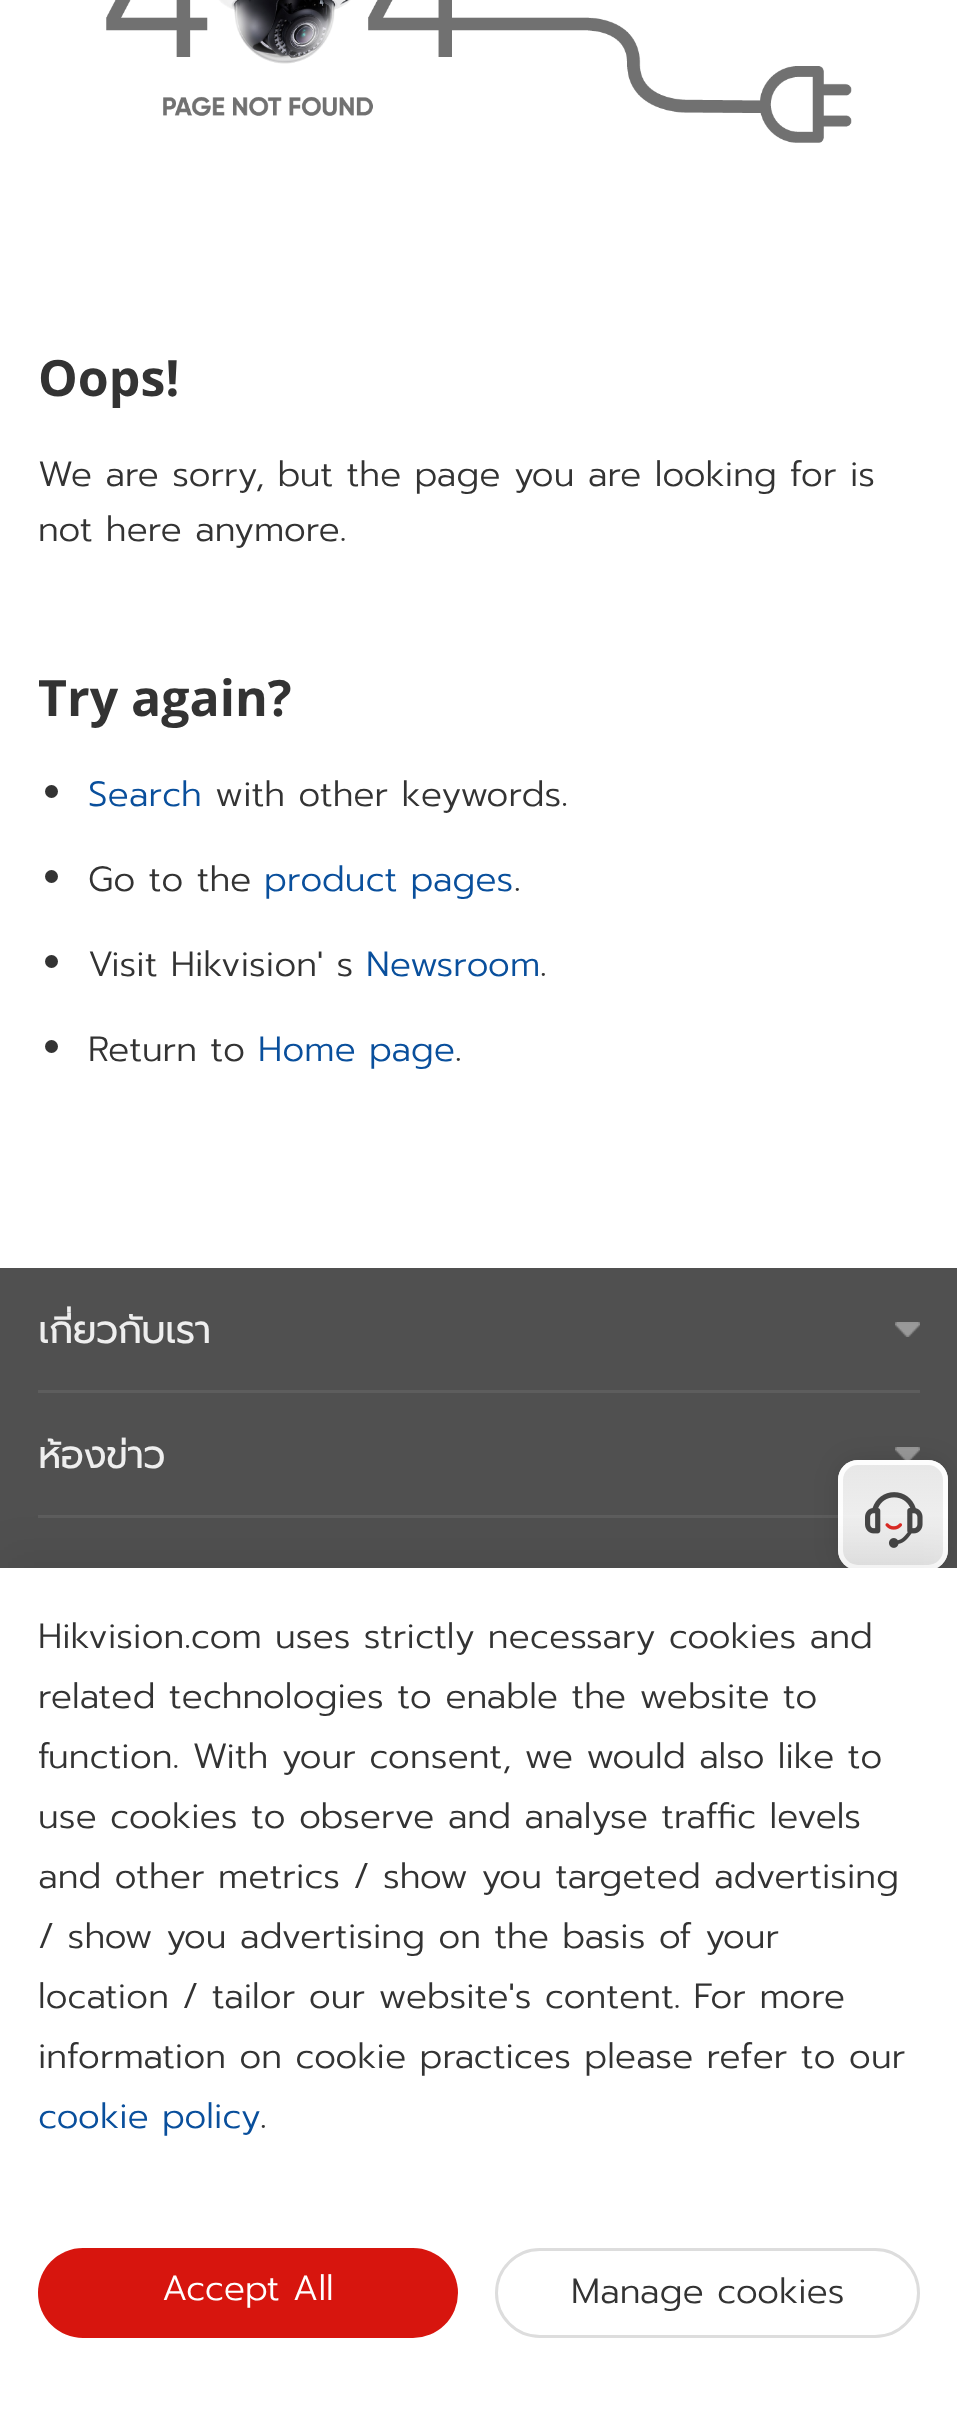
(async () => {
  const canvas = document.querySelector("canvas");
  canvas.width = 957;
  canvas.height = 2413;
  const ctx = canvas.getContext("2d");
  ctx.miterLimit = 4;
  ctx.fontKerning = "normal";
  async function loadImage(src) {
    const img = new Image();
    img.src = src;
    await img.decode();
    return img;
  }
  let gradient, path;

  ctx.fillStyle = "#ffffff";
  ctx.fillRect(0, 0, 957, 2413);
  ctx.drawImage(await loadImage("img/1.png"), 106, 0, 746, 143);
  ctx.fillStyle = "#333333";
  ctx.beginPath();
  ctx.arc(51.5, 791.5, 6.5, 0, Math.PI * 2);
  ctx.fill();
  ctx.beginPath();
  ctx.arc(51.5, 876.5, 6.5, 0, Math.PI * 2);
  ctx.fill();
  ctx.beginPath();
  ctx.arc(51.5, 961.5, 6.5, 0, Math.PI * 2);
  ctx.fill();
  ctx.beginPath();
  ctx.arc(51.5, 1046.5, 6.5, 0, Math.PI * 2);
  ctx.fill();
  ctx.fillStyle = "#505050";
  ctx.fillRect(0, 1268, 957, 300);
  ctx.fillStyle = "#5d5d5d";
  ctx.fillRect(38, 1390, 882, 3);
  ctx.drawImage(await loadImage("img/2.png"), 895, 1322, 25, 15);
  ctx.fillRect(38, 1515, 882, 3);
  ctx.drawImage(await loadImage("img/2.png"), 895, 1447, 25, 15);
  ctx.save();
  path = new Path2D("M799 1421H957V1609H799ZM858 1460H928C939 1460 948 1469 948 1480V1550C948 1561 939 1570 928 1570H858C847 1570 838 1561 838 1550V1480C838 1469 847 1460 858 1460Z");
  ctx.clip(path, "evenodd");
  ctx.fillStyle = "rgba(0, 0, 0, 0.11)";
  ctx.filter = "blur(12.5px)";
  ctx.beginPath();
  ctx.roundRect(838, 1460, 110, 110, 20);
  ctx.fill();
  ctx.filter = "none";
  ctx.restore();
  ctx.save();
  ctx.beginPath();
  ctx.roundRect(838, 1460, 110, 110, 20);
  ctx.clip();
  gradient = ctx.createLinearGradient(893, 1365, 893, 1465);
  gradient.addColorStop(0, "rgba(248, 248, 248, 0.9)");
  gradient.addColorStop(0.51, "rgba(255, 255, 255, 0.9)");
  gradient.addColorStop(1, "rgba(248, 248, 248, 0.9)");
  ctx.fillStyle = gradient;
  ctx.fillRect(838, 1460, 110, 5);
  gradient = ctx.createLinearGradient(893, 1465, 893, 1565);
  gradient.addColorStop(0, "rgba(248, 248, 248, 0.9)");
  gradient.addColorStop(0.51, "rgba(255, 255, 255, 0.9)");
  gradient.addColorStop(1, "rgba(248, 248, 248, 0.9)");
  ctx.fillStyle = gradient;
  ctx.fillRect(838, 1465, 110, 100);
  gradient = ctx.createLinearGradient(893, 1565, 893, 1665);
  gradient.addColorStop(0, "#e7e7e7");
  gradient.addColorStop(0.51, "#eeeeee");
  gradient.addColorStop(1, "#e7e7e7");
  ctx.fillStyle = gradient;
  ctx.fillRect(838, 1565, 110, 3);
  ctx.restore();
  ctx.beginPath();
  ctx.roundRect(840.5, 1462.5, 105, 105, 17.5);
  ctx.strokeStyle = "rgba(255, 255, 255, 0.9)";
  ctx.lineWidth = 5;
  ctx.stroke();
  ctx.drawImage(await loadImage("img/3.png"), 865, 1492, 58, 56);
  ctx.fillStyle = "rgba(0, 0, 0, 0.05)";
  ctx.filter = "blur(20px)";
  ctx.beginPath();
  ctx.rect(0, 1550, 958, 848);
  ctx.fill();
  ctx.filter = "none";
  ctx.fillStyle = "#ffffff";
  ctx.fillRect(0, 1568, 957, 845);
  ctx.fillStyle = "#d7150e";
  ctx.beginPath();
  ctx.roundRect(38, 2248, 420, 90, 45);
  ctx.fill();
  ctx.beginPath();
  ctx.roundRect(496.5, 2249.5, 422, 87, 43.5);
  ctx.strokeStyle = "#dddddd";
  ctx.lineWidth = 3;
  ctx.stroke();
  ctx.font = "bold 50px Open Sans";
  ctx.fillStyle = "#333333";
  ctx.fillText("Oops!", 38, 396);
  ctx.font = "300 35px Prompt";
  ctx.fillText("We are sorry, but the page you are looking for is", 38, 486);
  ctx.fillText("not here anymore.", 38, 541);
  ctx.font = "bold 50px Open Sans";
  ctx.fillText("Try again?", 38, 716);
  ctx.font = "300 35px Prompt";
  ctx.fillStyle = "#094f9c";
  ctx.fillText("Search", 88, 806);
  ctx.fillStyle = "#333333";
  ctx.fillText("with other keywords.", 215, 806);
  ctx.fillText("Go to the", 88, 891);
  ctx.fillStyle = "#094f9c";
  ctx.fillText("product pages", 264, 891);
  ctx.fillStyle = "#333333";
  ctx.fillText(".", 514, 891);
  ctx.fillText("Visit Hikvision' s", 88, 976);
  ctx.fillStyle = "#094f9c";
  ctx.fillText("Newsroom", 366, 976);
  ctx.fillStyle = "#333333";
  ctx.fillText(".", 540, 976);
  ctx.fillText("Return to", 88, 1061);
  ctx.fillStyle = "#094f9c";
  ctx.fillText("Home page", 258, 1061);
  ctx.fillStyle = "#333333";
  ctx.fillText(".", 455, 1061);
  ctx.save();
  ctx.beginPath();
  ctx.rect(38, 1268, 882, 122);
  ctx.clip();
  ctx.font = "bold 37.5px Prompt";
  ctx.fillStyle = "#eeeeee";
  ctx.fillText("เกี่ยวกับเรา", 38, 1343);
  ctx.restore();
  ctx.save();
  ctx.beginPath();
  ctx.rect(38, 1393, 882, 122);
  ctx.clip();
  ctx.font = "bold 37.5px Prompt";
  ctx.fillStyle = "#eeeeee";
  ctx.fillText("ห้องข่าว", 38, 1468);
  ctx.restore();
  for (const [text, x, y] of [
    ["Hikvision.com uses strictly necessary cookies and", 38, 1648],
    ["related technologies to enable the website to", 38, 1708],
    ["function. With your consent, we would also like to", 38, 1768],
    ["use cookies to observe and analyse traffic levels", 38, 1828],
    ["and other metrics / show you targeted advertising", 38, 1888],
    ["/ show you advertising on the basis of your", 38, 1948],
    ["location / tailor our website's content. For more", 38, 2008],
    ["information on cookie practices please refer to our", 38, 2068],
  ]) {
    ctx.fillText(text, x, y);
  }
  ctx.fillStyle = "#094f9c";
  ctx.fillText("cookie policy", 38, 2128);
  ctx.fillStyle = "#333333";
  ctx.fillText(".", 260, 2128);
  ctx.fillStyle = "#ffffff";
  ctx.fillText("Accept All", 162, 2300);
  ctx.fillStyle = "#333333";
  ctx.fillText("Manage cookies", 571, 2303);
})();
